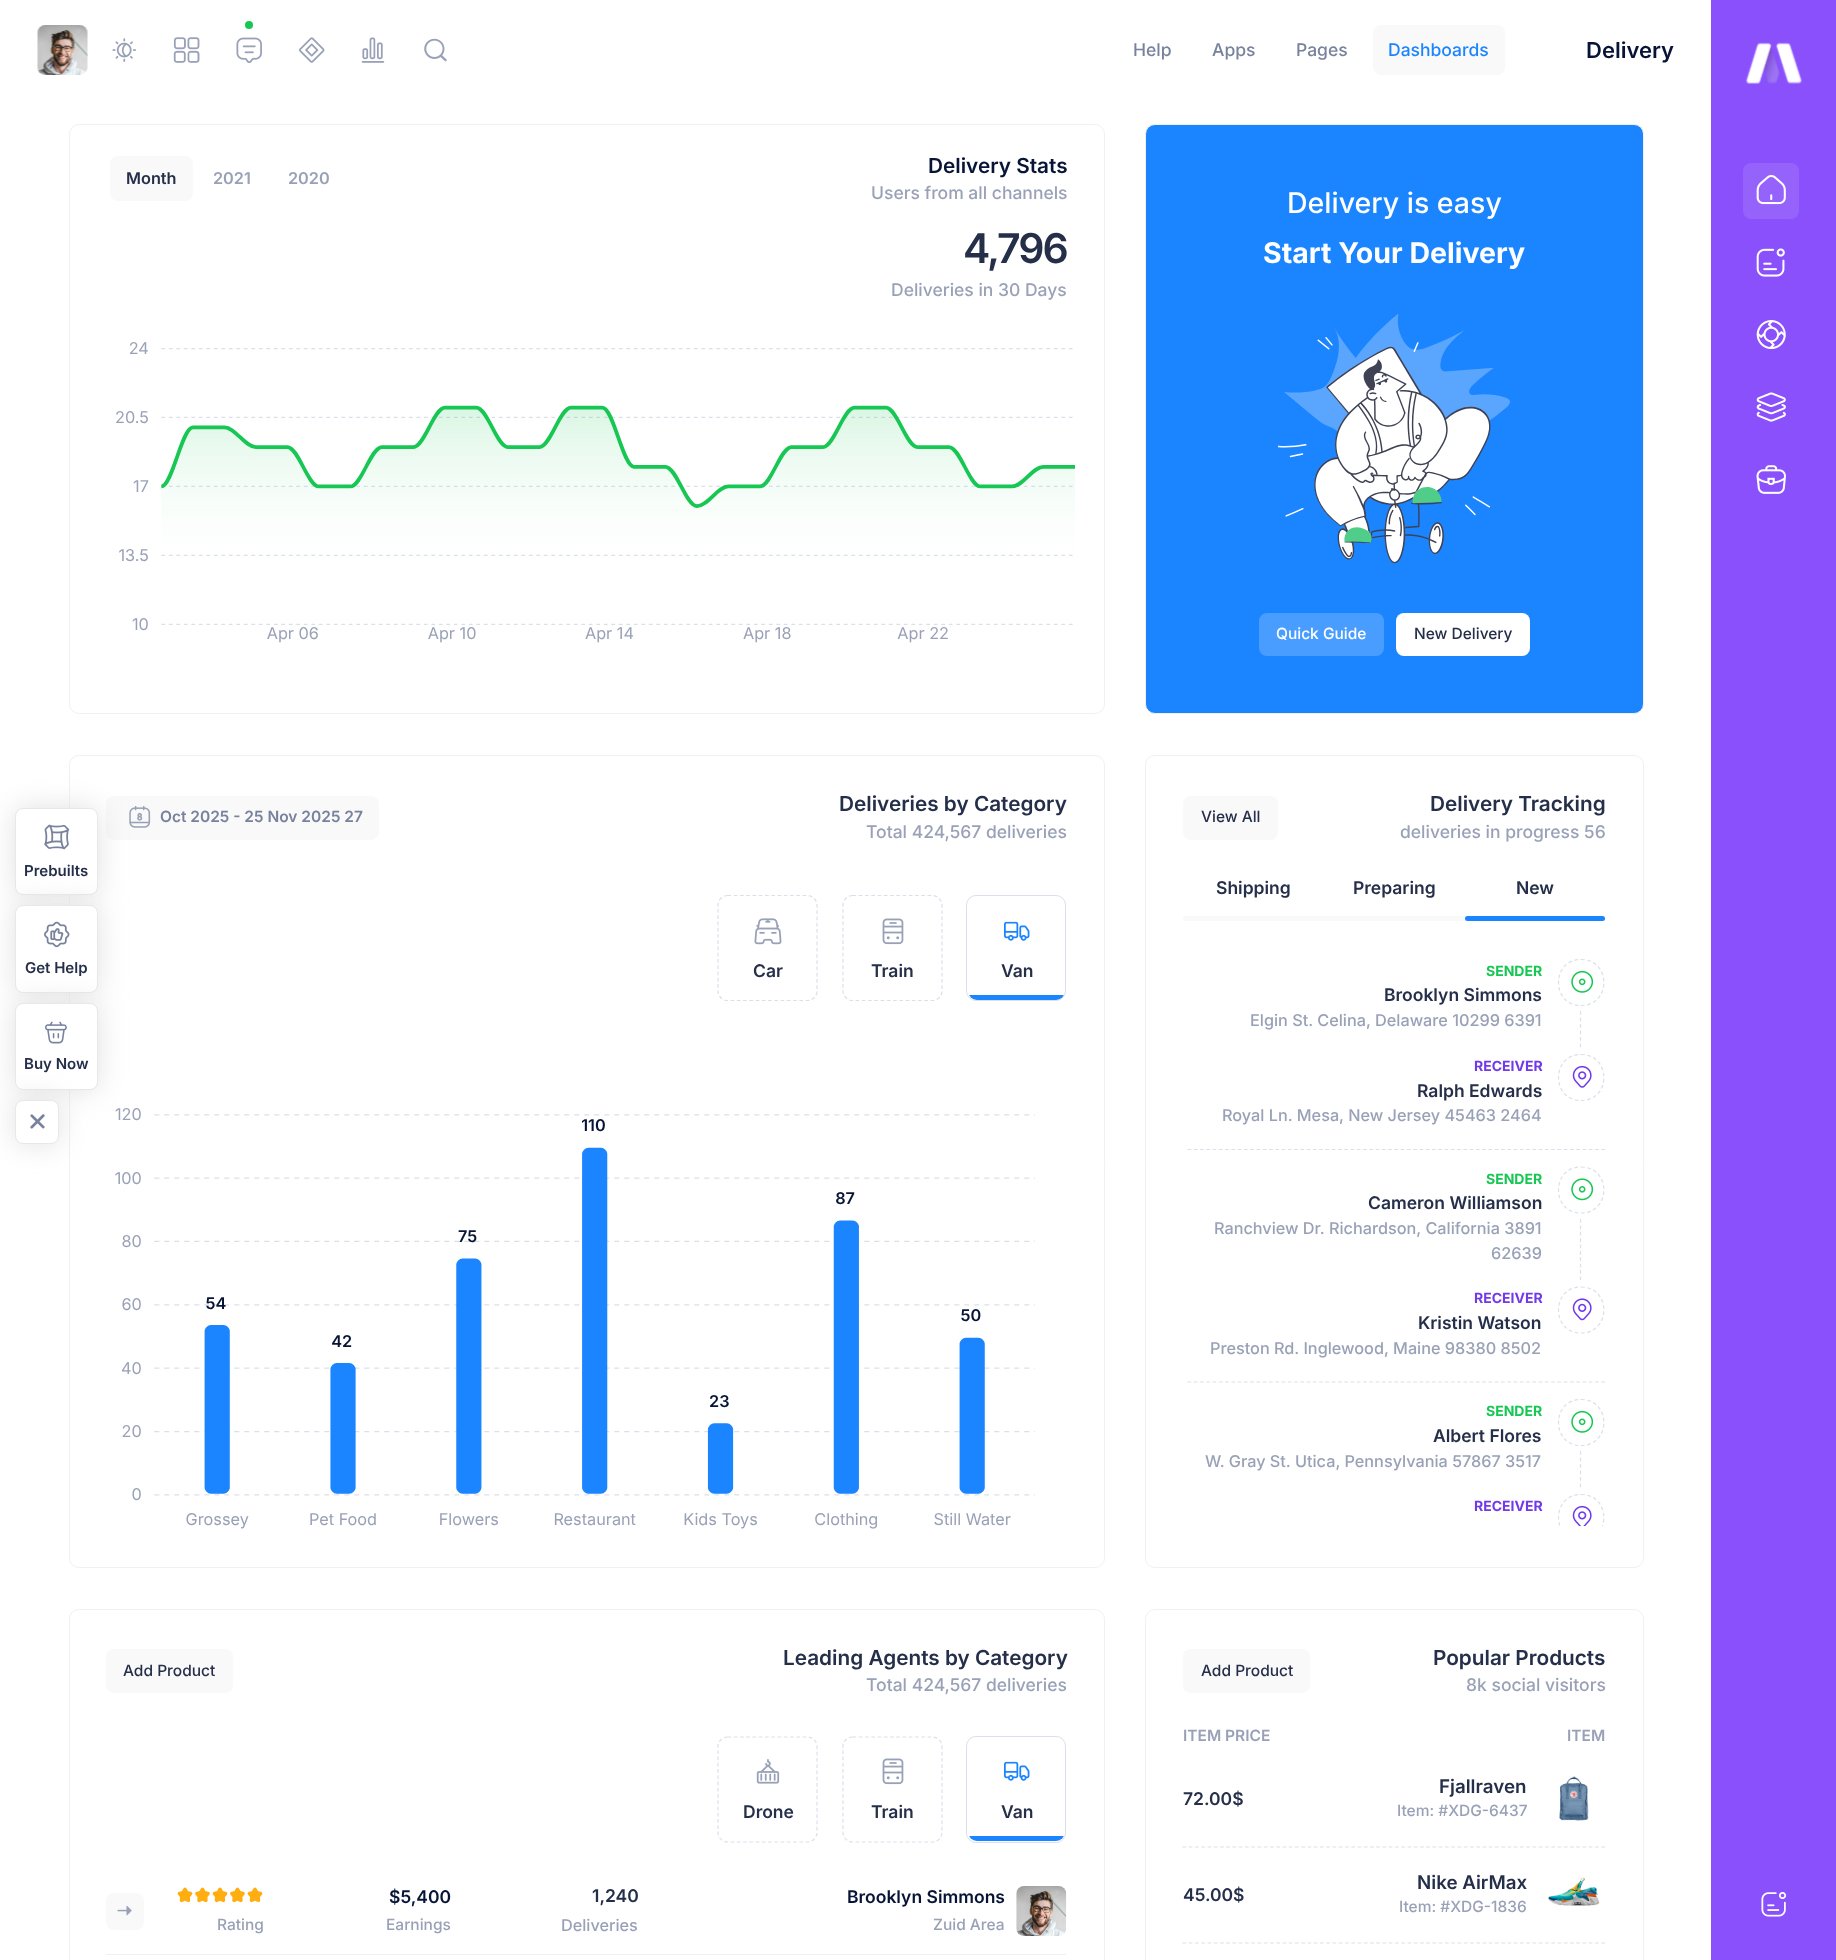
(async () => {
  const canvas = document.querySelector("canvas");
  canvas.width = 1836;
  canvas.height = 1960;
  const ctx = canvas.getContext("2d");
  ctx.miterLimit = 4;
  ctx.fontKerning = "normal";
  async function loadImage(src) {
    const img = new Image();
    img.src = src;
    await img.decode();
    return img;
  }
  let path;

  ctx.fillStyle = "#ffffff";
  ctx.fillRect(0, 0, 1836, 1960);
  ctx.beginPath();
  ctx.roundRect(69.5, 755.5, 1035, 812, 9.5);
  ctx.strokeStyle = "#f1f1f4";
  ctx.stroke();
  ctx.fillStyle = "#f9f9f9";
  ctx.beginPath();
  ctx.roundRect(106, 796, 273, 44, 8);
  ctx.fill();
  ctx.drawImage(await loadImage("img/14.png"), 129, 806, 22, 22);
  ctx.fillStyle = "#e0e0e0";
  ctx.filter = "blur(14px)";
  ctx.beginPath();
  ctx.roundRect(15, 808, 83, 87, 8);
  ctx.fill();
  ctx.filter = "none";
  ctx.fillStyle = "#ffffff";
  ctx.beginPath();
  ctx.roundRect(15.5, 808.5, 82, 86, 7.5);
  ctx.fill();
  ctx.strokeStyle = "#e8e8e8";
  ctx.stroke();
  ctx.drawImage(await loadImage("img/1.png"), 44, 824, 26, 26);
  ctx.fillStyle = "#e0e0e0";
  ctx.filter = "blur(14px)";
  ctx.beginPath();
  ctx.roundRect(15, 905, 83, 88, 8);
  ctx.fill();
  ctx.filter = "none";
  ctx.fillStyle = "#ffffff";
  ctx.beginPath();
  ctx.roundRect(15.5, 905.5, 82, 87, 7.5);
  ctx.fill();
  ctx.stroke();
  ctx.drawImage(await loadImage("img/2.png"), 44, 921, 26, 27);
  ctx.drawImage(await loadImage("img/18.png"), 115, 1108, 920, 421);
  ctx.fillStyle = "#e0e0e0";
  ctx.filter = "blur(14px)";
  ctx.beginPath();
  ctx.roundRect(15, 1003, 83, 87, 8);
  ctx.fill();
  ctx.filter = "none";
  ctx.fillStyle = "#ffffff";
  ctx.beginPath();
  ctx.roundRect(15.5, 1003.5, 82, 86, 7.5);
  ctx.fill();
  ctx.stroke();
  ctx.fillStyle = "#e0e0e0";
  ctx.filter = "blur(14px)";
  ctx.beginPath();
  ctx.roundRect(15, 1100, 44, 44, 8);
  ctx.fill();
  ctx.filter = "none";
  ctx.fillStyle = "#ffffff";
  ctx.beginPath();
  ctx.roundRect(15.5, 1100.5, 43, 43, 7.5);
  ctx.fill();
  ctx.stroke();
  ctx.drawImage(await loadImage("img/3.png"), 30, 1114, 15, 15);
  ctx.drawImage(await loadImage("img/4.png"), 45, 1021, 22, 23);
  ctx.drawImage(await loadImage("img/5.png"), 37, 25, 51, 50);
  ctx.drawImage(await loadImage("img/6.png"), 112, 38, 24, 24);
  ctx.drawImage(await loadImage("img/7.png"), 173, 37, 27, 26);
  ctx.fillStyle = "#17c653";
  ctx.beginPath();
  ctx.arc(249, 25, 4, 0, Math.PI * 2);
  ctx.fill();
  ctx.drawImage(await loadImage("img/8.png"), 236, 37, 26, 26);
  ctx.drawImage(await loadImage("img/9.png"), 299, 37, 26, 26);
  ctx.drawImage(await loadImage("img/10.png"), 361, 37, 24, 26);
  ctx.drawImage(await loadImage("img/11.png"), 424, 38, 23, 24);
  ctx.fillStyle = "#f9f9f9";
  ctx.beginPath();
  ctx.roundRect(1373, 25, 132, 50, 8);
  ctx.fill();
  ctx.beginPath();
  ctx.roundRect(69.5, 124.5, 1035, 589, 9.5);
  ctx.strokeStyle = "#f1f1f4";
  ctx.stroke();
  ctx.beginPath();
  ctx.roundRect(110, 156, 83, 45, 8);
  ctx.fill();
  ctx.drawImage(await loadImage("img/12.png"), 116, 342, 959, 301);
  ctx.fillStyle = "#1b84ff";
  ctx.beginPath();
  ctx.roundRect(1145.5, 124.5, 498, 589, 9.5);
  ctx.fill();
  ctx.stroke();
  ctx.drawImage(await loadImage("img/13.png"), 1278, 314, 232, 250);
  ctx.fillStyle = "#499dff";
  ctx.beginPath();
  ctx.roundRect(1259, 613, 125, 43, 8);
  ctx.fill();
  ctx.fillStyle = "#ffffff";
  ctx.beginPath();
  ctx.roundRect(1396, 613, 134, 43, 8);
  ctx.fill();
  path = new Path2D("M727.5 895.5H807.5C812.5 895.5 817 900 817 905V991C817 996.5 812.5 1000.5 807.5 1000.5H727.5C722.5 1000.5 718 996.5 718 991V905C718 900 722.5 895.5 727.5 895.5Z");
  ctx.strokeStyle = "#dbdfe9";
  ctx.lineWidth = 1.2;
  ctx.setLineDash([3.75, 2.5]);
  ctx.stroke(path);
  ctx.drawImage(await loadImage("img/15.png"), 754, 918, 28, 27);
  path = new Path2D("M852.5 895.5H932.5C937.5 895.5 942 900 942 905V991C942 996.5 937.5 1000.5 932.5 1000.5H852.5C847.5 1000.5 843 996.5 843 991V905C843 900 847.5 895.5 852.5 895.5Z");
  ctx.stroke(path);
  ctx.drawImage(await loadImage("img/16.png"), 882, 918, 22, 27);
  ctx.beginPath();
  ctx.roundRect(966.5, 895.5, 99, 105, 9.5);
  ctx.lineWidth = 1;
  ctx.setLineDash([]);
  ctx.stroke();
  ctx.drawImage(await loadImage("img/17.png"), 1003, 921, 27, 20);
  ctx.save();
  ctx.beginPath();
  ctx.roundRect(968, 896, 97, 104, 9);
  ctx.clip();
  ctx.fillStyle = "#1b84ff";
  ctx.fillRect(968, 995, 97, 5);
  ctx.restore();
  ctx.beginPath();
  ctx.roundRect(1145.5, 755.5, 498, 812, 9.5);
  ctx.strokeStyle = "#f1f1f4";
  ctx.stroke();
  ctx.fillStyle = "#f9f9f9";
  ctx.beginPath();
  ctx.roundRect(1183, 796, 95, 44, 8);
  ctx.fill();
  ctx.beginPath();
  ctx.roundRect(1183, 916, 422, 5, 2.5);
  ctx.fill();
  ctx.fillStyle = "#1b84ff";
  ctx.beginPath();
  ctx.roundRect(1465, 916, 140, 5, 2.5);
  ctx.fill();
  path = new Path2D("M1581 959.5C1611.5 959.5 1611.5 1005.5 1581 1005.5C1551 1005.5 1551 959.5 1581 959.5Z");
  ctx.strokeStyle = "#dbdfe9";
  ctx.lineWidth = 1.2;
  ctx.setLineDash([3.75, 2.5]);
  ctx.stroke(path);
  ctx.drawImage(await loadImage("img/19.png"), 1571, 970, 23, 23);
  path = new Path2D("M1580.5 1011V1047.5");
  ctx.setLineDash([3.75, 2.75]);
  ctx.stroke(path);
  path = new Path2D("M1581 1054.5C1611.5 1054.5 1611.5 1100.5 1581 1100.5C1551 1100.5 1551 1054.5 1581 1054.5Z");
  ctx.setLineDash([3.75, 2.5]);
  ctx.stroke(path);
  ctx.drawImage(await loadImage("img/20.png"), 1572, 1065, 20, 23);
  path = new Path2D("M1187.5 1149.5H1605");
  ctx.setLineDash([3.75, 2.52]);
  ctx.stroke(path);
  path = new Path2D("M1581 1167C1611.5 1167 1611.5 1213 1581 1213C1551 1213 1551 1167 1581 1167Z");
  ctx.setLineDash([3.75, 2.5]);
  ctx.stroke(path);
  ctx.drawImage(await loadImage("img/21.png"), 1571, 1178, 23, 23);
  path = new Path2D("M1580.5 1219V1280");
  ctx.setLineDash([3.75, 2.64]);
  ctx.stroke(path);
  path = new Path2D("M1581 1287C1611.5 1287 1611.5 1333 1581 1333C1551 1333 1551 1287 1581 1287Z");
  ctx.setLineDash([3.75, 2.5]);
  ctx.stroke(path);
  ctx.drawImage(await loadImage("img/22.png"), 1572, 1298, 20, 23);
  path = new Path2D("M1187.5 1382H1605");
  ctx.setLineDash([3.75, 2.52]);
  ctx.stroke(path);
  path = new Path2D("M1581 1399.5C1611.5 1399.5 1611.5 1445.5 1581 1445.5C1551 1445.5 1551 1399.5 1581 1399.5Z");
  ctx.setLineDash([3.75, 2.5]);
  ctx.stroke(path);
  ctx.drawImage(await loadImage("img/19.png"), 1571, 1410, 23, 23);
  path = new Path2D("M1580.5 1451V1487.5");
  ctx.setLineDash([3.75, 2.75]);
  ctx.stroke(path);
  ctx.save();
  ctx.beginPath();
  ctx.rect(1159, 959, 484, 567);
  ctx.clip();
  path = new Path2D("M1581 1494.5C1611.5 1494.5 1611.5 1540.5 1581 1540.5C1551 1540.5 1551 1494.5 1581 1494.5Z");
  ctx.setLineDash([3.75, 2.5]);
  ctx.stroke(path);
  ctx.restore();
  ctx.drawImage(await loadImage("img/23.png"), 1572, 1505, 20, 21);
  ctx.beginPath();
  ctx.roundRect(69.5, 1609.5, 1035, 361, 9.5);
  ctx.strokeStyle = "#f1f1f4";
  ctx.lineWidth = 1;
  ctx.setLineDash([]);
  ctx.stroke();
  ctx.fillStyle = "#f9f9f9";
  ctx.beginPath();
  ctx.roundRect(106, 1649, 127, 44, 8);
  ctx.fill();
  path = new Path2D("M727.5 1737H807.5C812.5 1737 817 1741 817 1746.5V1832.5C817 1837.5 812.5 1842 807.5 1842H727.5C722.5 1842 718 1837.5 718 1832.5V1746.5C718 1741 722.5 1737 727.5 1737Z");
  ctx.strokeStyle = "#dbdfe9";
  ctx.lineWidth = 1.2;
  ctx.setLineDash([3.75, 2.5]);
  ctx.stroke(path);
  ctx.drawImage(await loadImage("img/24.png"), 756, 1759, 24, 25);
  path = new Path2D("M852.5 1737H932.5C937.5 1737 942 1741 942 1746.5V1832.5C942 1837.5 937.5 1842 932.5 1842H852.5C847.5 1842 843 1837.5 843 1832.5V1746.5C843 1741 847.5 1737 852.5 1737Z");
  ctx.stroke(path);
  ctx.drawImage(await loadImage("img/16.png"), 882, 1758, 22, 27);
  ctx.beginPath();
  ctx.roundRect(966.5, 1736.5, 99, 106, 9.5);
  ctx.lineWidth = 1;
  ctx.setLineDash([]);
  ctx.stroke();
  ctx.drawImage(await loadImage("img/17.png"), 1003, 1761, 27, 20);
  ctx.save();
  ctx.beginPath();
  ctx.roundRect(968, 1738, 97, 103, 9);
  ctx.clip();
  ctx.fillStyle = "#1b84ff";
  ctx.fillRect(968, 1836, 97, 5);
  ctx.restore();
  ctx.fillStyle = "#f1f1f4";
  ctx.fillRect(106, 1954, 960, 1);
  ctx.fillStyle = "#f9f9f9";
  ctx.beginPath();
  ctx.roundRect(106, 1893, 38, 37, 8);
  ctx.fill();
  ctx.drawImage(await loadImage("img/25.png"), 117, 1905, 15, 11);
  ctx.drawImage(await loadImage("img/26.png"), 177, 1887, 16, 16);
  ctx.drawImage(await loadImage("img/27.png"), 195, 1887, 15, 16);
  ctx.drawImage(await loadImage("img/26.png"), 212, 1887, 16, 16);
  ctx.drawImage(await loadImage("img/27.png"), 230, 1887, 15, 16);
  ctx.drawImage(await loadImage("img/26.png"), 247, 1887, 16, 16);
  ctx.drawImage(await loadImage("img/28.png"), 1016, 1886, 51, 50);
  ctx.beginPath();
  ctx.roundRect(1145.5, 1609.5, 498, 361, 9.5);
  ctx.strokeStyle = "#f1f1f4";
  ctx.stroke();
  ctx.beginPath();
  ctx.roundRect(1183, 1649, 127, 44, 8);
  ctx.fill();
  ctx.drawImage(await loadImage("img/29.png"), 1559, 1776, 30, 45);
  path = new Path2D("M1182.5 1847H1605");
  ctx.strokeStyle = "#dbdfe9";
  ctx.lineWidth = 1.2;
  ctx.setLineDash([3.75, 2.5]);
  ctx.stroke(path);
  ctx.drawImage(await loadImage("img/30.png"), 1548, 1877, 52, 29);
  path = new Path2D("M1182.5 1943H1605");
  ctx.stroke(path);
  ctx.fillStyle = "#8950fc";
  ctx.fillRect(1711, 0, 125, 1960);
  ctx.drawImage(await loadImage("img/31.png"), 1745, 42, 57, 42);
  ctx.fillStyle = "#9562fc";
  ctx.beginPath();
  ctx.roundRect(1743, 163, 56, 56, 8);
  ctx.fill();
  ctx.drawImage(await loadImage("img/32.png"), 1756, 175, 30, 30);
  ctx.drawImage(await loadImage("img/33.png"), 1756, 248, 29, 29);
  ctx.drawImage(await loadImage("img/34.png"), 1756, 320, 30, 30);
  ctx.drawImage(await loadImage("img/35.png"), 1756, 392, 30, 30);
  ctx.drawImage(await loadImage("img/36.png"), 1756, 465, 30, 29);
  ctx.drawImage(await loadImage("img/37.png"), 1761, 1892, 26, 25);
  ctx.font = "600 15px Inter";
  ctx.fillStyle = "#252f4a";
  for (const [text, x, y] of [
    ["Prebuilts", 24, 876],
    ["Get Help", 25, 973],
    ["Buy Now", 24, 1069],
  ]) {
    ctx.fillText(text, x, y);
  }
  ctx.font = "500 17.5px Inter";
  ctx.fillStyle = "#78829d";
  for (const [text, x, y] of [
    ["Help", 1133, 56],
    ["Apps", 1212, 56],
    ["Pages", 1296, 56],
  ]) {
    ctx.fillText(text, x, y);
  }
  ctx.fillStyle = "#1b84ff";
  ctx.fillText("Dashboards", 1388, 56);
  ctx.font = "600 22px Inter";
  ctx.fillStyle = "#071437";
  ctx.fillText("Delivery", 1586, 58);
  ctx.font = "600 16.25px Inter";
  ctx.fillStyle = "#252f4a";
  ctx.fillText("Month", 126, 184);
  ctx.fillStyle = "#99a1b7";
  ctx.fillText("2021", 213, 184);
  ctx.fillText("2020", 288, 184);
  ctx.font = "600 20.75px Inter";
  ctx.fillStyle = "#071437";
  ctx.fillText("Delivery Stats", 928, 173);
  ctx.font = "500 17.5px Inter";
  ctx.fillStyle = "#99a1b7";
  ctx.fillText("Users from all channels", 871, 199);
  ctx.letterSpacing = "-2px";
  ctx.font = "600 41px Inter";
  ctx.fillStyle = "#252f4a";
  ctx.fillText("4,796", 963, 263);
  ctx.letterSpacing = "0px";
  ctx.font = "500 17.5px Inter";
  ctx.fillStyle = "#99a1b7";
  ctx.fillText("Deliveries in 30 Days", 891, 296);
  ctx.font = "500 28.5px Inter";
  ctx.fillStyle = "#ffffff";
  ctx.fillText("Delivery is easy", 1287, 213);
  ctx.font = "bold 28.5px Inter";
  ctx.fillText("Start Your Delivery", 1263, 263);
  ctx.font = "500 15.5px Inter";
  ctx.fillText("Quick Guide", 1276, 639);
  ctx.fillStyle = "#252f4a";
  ctx.fillText("New Delivery", 1414, 639);
  ctx.font = "600 15.5px Inter";
  ctx.fillStyle = "#78829d";
  ctx.fillText("Oct 2025 - 25 Nov 2025 27", 160, 822);
  ctx.font = "600 20.75px Inter";
  ctx.fillStyle = "#252f4a";
  ctx.fillText("Deliveries by Category", 839, 811);
  ctx.font = "500 17.5px Inter";
  ctx.fillStyle = "#99a1b7";
  ctx.fillText("Total 424,567 deliveries", 866, 838);
  ctx.font = "600 17.5px Inter";
  ctx.fillStyle = "#252f4a";
  for (const [text, x, y] of [
    ["Car", 753, 977],
    ["Train", 871, 977],
    ["Van", 1001, 977],
  ]) {
    ctx.fillText(text, x, y);
  }
  ctx.font = "500 15.5px Inter";
  ctx.fillText("View All", 1201, 822);
  ctx.font = "600 20.75px Inter";
  ctx.fillText("Delivery Tracking", 1430, 811);
  ctx.font = "500 17.5px Inter";
  ctx.fillStyle = "#99a1b7";
  ctx.fillText("deliveries in progress 56", 1400, 838);
  ctx.font = "600 17.5px Inter";
  ctx.fillStyle = "#252f4a";
  for (const [text, x, y] of [
    ["Shipping", 1216, 894],
    ["Preparing", 1353, 894],
    ["New", 1516, 894],
  ]) {
    ctx.fillText(text, x, y);
  }
  ctx.font = "bold 14px Inter";
  ctx.fillStyle = "#17c653";
  ctx.fillText("SENDER", 1486, 976);
  ctx.font = "600 17.5px Inter";
  ctx.fillStyle = "#252f4a";
  ctx.fillText("Brooklyn Simmons", 1384, 1001);
  ctx.font = "500 16.25px Inter";
  ctx.fillStyle = "#99a1b7";
  ctx.fillText("Elgin St. Celina, Delaware 10299 6391", 1250, 1026);
  ctx.font = "bold 14px Inter";
  ctx.fillStyle = "#7239ea";
  ctx.fillText("RECEIVER", 1474, 1071);
  ctx.font = "600 17.5px Inter";
  ctx.fillStyle = "#252f4a";
  ctx.fillText("Ralph Edwards", 1417, 1097);
  ctx.font = "500 16.25px Inter";
  ctx.fillStyle = "#99a1b7";
  ctx.fillText("Royal Ln. Mesa, New Jersey 45463 2464", 1222, 1121);
  ctx.font = "bold 14px Inter";
  ctx.fillStyle = "#17c653";
  ctx.fillText("SENDER", 1486, 1184);
  ctx.font = "600 17.5px Inter";
  ctx.fillStyle = "#252f4a";
  ctx.fillText("Cameron Williamson", 1368, 1209);
  ctx.font = "500 16.25px Inter";
  ctx.fillStyle = "#99a1b7";
  ctx.fillText("Ranchview Dr. Richardson, California 3891", 1214, 1234);
  ctx.fillText("62639", 1491, 1259);
  ctx.font = "bold 14px Inter";
  ctx.fillStyle = "#7239ea";
  ctx.fillText("RECEIVER", 1474, 1303);
  ctx.font = "600 17.5px Inter";
  ctx.fillStyle = "#252f4a";
  ctx.fillText("Kristin Watson", 1418, 1329);
  ctx.font = "500 16.25px Inter";
  ctx.fillStyle = "#99a1b7";
  ctx.fillText("Preston Rd. Inglewood, Maine 98380 8502", 1210, 1354);
  ctx.font = "bold 14px Inter";
  ctx.fillStyle = "#17c653";
  ctx.fillText("SENDER", 1486, 1416);
  ctx.font = "600 17.5px Inter";
  ctx.fillStyle = "#252f4a";
  ctx.fillText("Albert Flores", 1433, 1442);
  ctx.font = "500 16.25px Inter";
  ctx.fillStyle = "#99a1b7";
  ctx.fillText("W. Gray St. Utica, Pennsylvania 57867 3517", 1205, 1467);
  ctx.font = "bold 14px Inter";
  ctx.fillStyle = "#7239ea";
  ctx.fillText("RECEIVER", 1474, 1511);
  ctx.font = "500 15.5px Inter";
  ctx.fillStyle = "#252f4a";
  ctx.fillText("Add Product", 123, 1676);
  ctx.font = "600 20.75px Inter";
  ctx.fillText("Leading Agents by Category", 783, 1665);
  ctx.font = "500 17.5px Inter";
  ctx.fillStyle = "#99a1b7";
  ctx.fillText("Total 424,567 deliveries", 866, 1691);
  ctx.font = "600 17.5px Inter";
  ctx.fillStyle = "#252f4a";
  for (const [text, x, y] of [
    ["Drone", 743, 1818],
    ["Train", 871, 1818],
    ["Van", 1001, 1818],
  ]) {
    ctx.fillText(text, x, y);
  }
  ctx.font = "500 15.5px Inter";
  ctx.fillStyle = "#99a1b7";
  ctx.fillText("Rating", 217, 1930);
  ctx.font = "600 17.5px Inter";
  ctx.fillStyle = "#071437";
  ctx.fillText("$5,400", 389, 1903);
  ctx.font = "500 15.5px Inter";
  ctx.fillStyle = "#99a1b7";
  ctx.fillText("Earnings", 386, 1930);
  ctx.font = "600 17.5px Inter";
  ctx.fillStyle = "#252f4a";
  ctx.fillText("1,240", 592, 1902);
  ctx.font = "500 16.25px Inter";
  ctx.fillStyle = "#99a1b7";
  ctx.fillText("Deliveries", 561, 1931);
  ctx.font = "600 17.5px Inter";
  ctx.fillStyle = "#071437";
  ctx.fillText("Brooklyn Simmons", 847, 1903);
  ctx.font = "500 15.5px Inter";
  ctx.fillStyle = "#99a1b7";
  ctx.fillText("Zuid Area", 933, 1930);
  ctx.fillStyle = "#252f4a";
  ctx.fillText("Add Product", 1201, 1676);
  ctx.font = "600 20.75px Inter";
  ctx.fillText("Popular Products", 1433, 1665);
  ctx.font = "500 17.5px Inter";
  ctx.fillStyle = "#99a1b7";
  ctx.fillText("8k social visitors", 1466, 1691);
  ctx.font = "600 15.5px Inter";
  ctx.fillText("ITEM PRICE", 1183, 1741);
  ctx.fillText("ITEM", 1567, 1741);
  ctx.font = "600 17.5px Inter";
  ctx.fillStyle = "#252f4a";
  ctx.fillText("72.00$", 1183, 1805);
  ctx.font = "600 18.75px Inter";
  ctx.fillText("Fjallraven", 1439, 1793);
  ctx.font = "500 15.5px Inter";
  ctx.fillStyle = "#99a1b7";
  ctx.fillText("Item: #XDG-6437", 1397, 1816);
  ctx.font = "600 17.5px Inter";
  ctx.fillStyle = "#252f4a";
  ctx.fillText("45.00$", 1183, 1901);
  ctx.font = "600 18.75px Inter";
  ctx.fillText("Nike AirMax", 1417, 1889);
  ctx.font = "500 15.5px Inter";
  ctx.fillStyle = "#99a1b7";
  ctx.fillText("Item: #XDG-1836", 1399, 1912);
})();
